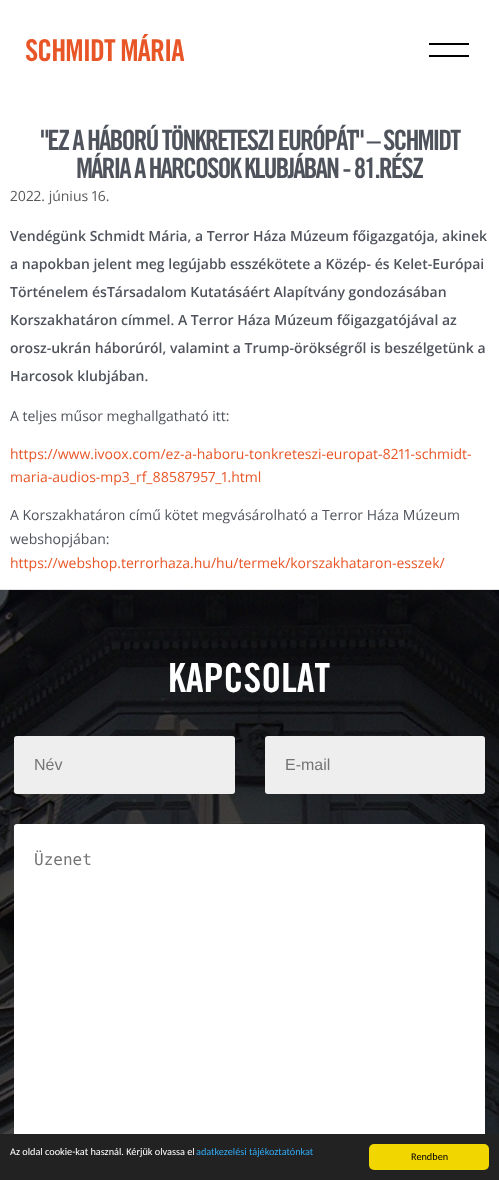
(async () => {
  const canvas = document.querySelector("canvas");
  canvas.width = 499;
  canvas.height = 1180;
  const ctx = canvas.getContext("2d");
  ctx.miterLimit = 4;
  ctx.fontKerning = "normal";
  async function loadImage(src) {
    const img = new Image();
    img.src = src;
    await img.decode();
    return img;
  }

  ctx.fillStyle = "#ffffff";
  ctx.fillRect(0, 0, 499, 1180);
  ctx.fillStyle = "#e4e4e4";
  ctx.fillRect(0, 589, 499, 1);
  ctx.drawImage(await loadImage("img/1.png"), 0, 590, 499, 544);
  ctx.fillStyle = "#eeeeee";
  ctx.beginPath();
  ctx.roundRect(14, 736, 221, 58, 3);
  ctx.fill();
  ctx.beginPath();
  ctx.roundRect(265, 736, 220, 58, 3);
  ctx.fill();
  ctx.fillStyle = "#ffffff";
  ctx.beginPath();
  ctx.roundRect(14, 824, 471, 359, 3);
  ctx.fill();
  for (const [x, y, w, h, color] of [
    [429, 43, 40, 2, "#000000"],
    [429, 55, 40, 2, "#000000"],
    [0, 1134, 499, 46, "#222222"],
  ]) {
    ctx.fillStyle = color;
    ctx.fillRect(x, y, w, h);
  }
  ctx.fillStyle = "#f1d600";
  ctx.beginPath();
  ctx.roundRect(369, 1144, 120, 26, 5);
  ctx.fill();
  ctx.letterSpacing = "-1px";
  ctx.font = "bold 30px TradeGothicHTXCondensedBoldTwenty";
  ctx.fillStyle = "#e85627";
  ctx.fillText("SCHMIDT MÁRIA", 25, 61);
  ctx.letterSpacing = "-2px";
  ctx.font = "bold 28px TradeGothicHTXCondensedBoldTwenty";
  ctx.fillStyle = "#4f535c";
  ctx.fillText("\"EZ A HÁBORÚ TÖNKRETESZI EURÓPÁT\" – SCHMIDT", 40, 150);
  ctx.fillText("MÁRIA A HARCOSOK KLUBJÁBAN - 81.RÉSZ", 76, 178);
  ctx.letterSpacing = "0px";
  ctx.font = "14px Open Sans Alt";
  ctx.fillStyle = "#595959";
  ctx.fillText("2022. június 16.", 10, 201);
  ctx.font = "600 14px Open Sans";
  ctx.fillStyle = "#4f535c";
  for (const [text, x, y] of [
    ["Vendégünk Schmidt Mária, a Terror Háza Múzeum főigazgatója, akinek", 10, 241],
    ["a napokban jelent meg legújabb esszékötete a Közép- és Kelet-Európai", 10, 269],
    ["Történelem ésTársadalom Kutatásáért Alapítvány gondozásában", 10, 297],
    ["Korszakhatáron címmel. A Terror Háza Múzeum főigazgatójával az", 10, 325],
    ["orosz-ukrán háborúról, valamint a Trump-örökségről is beszélgetünk a", 10, 353],
    ["Harcosok klubjában.", 10, 381],
  ]) {
    ctx.fillText(text, x, y);
  }
  ctx.font = "14px Open Sans";
  ctx.fillText("A teljes műsor meghallgatható itt:", 10, 421);
  ctx.font = "14px Open Sans Alt";
  ctx.fillStyle = "#e85627";
  ctx.fillText("https://www.ivoox.com/ez-a-haboru-tonkreteszi-europat-8211-schmidt-", 10, 459);
  ctx.fillText("maria-audios-mp3_rf_88587957_1.html", 10, 482);
  ctx.font = "14px Open Sans";
  ctx.fillStyle = "#4f535c";
  ctx.fillText("A Korszakhatáron című kötet megvásárolható a Terror Háza Múzeum", 10, 520);
  ctx.fillText("webshopjában:", 10, 544);
  ctx.fillStyle = "#e85627";
  ctx.fillText("https://webshop.terrorhaza.hu/hu/termek/korszakhataron-esszek/", 10, 568);
  ctx.font = "bold 40px TradeGothicHTXCondensedBoldTwenty";
  ctx.fillStyle = "#ffffff";
  ctx.fillText("KAPCSOLAT", 168, 692);
  ctx.font = "16px Liberation Sans";
  ctx.fillStyle = "#757575";
  ctx.fillText("Név", 34, 770);
  ctx.fillText("E-mail", 285, 770);
  ctx.font = "16px DejaVu Sans Mono";
  ctx.fillText("Üzenet", 34, 865);
  ctx.font = "10.25px Carlito";
  ctx.fillStyle = "#ffffff";
  ctx.fillText("Az oldal cookie-kat használ. Kérjük olvassa el", 10, 1155);
  ctx.fillStyle = "#31a8f0";
  ctx.fillText("adatkezelési tájékoztatónkat", 196, 1155);
  ctx.fillStyle = "#000000";
  ctx.fillText("Rendben", 411, 1160);
})();
